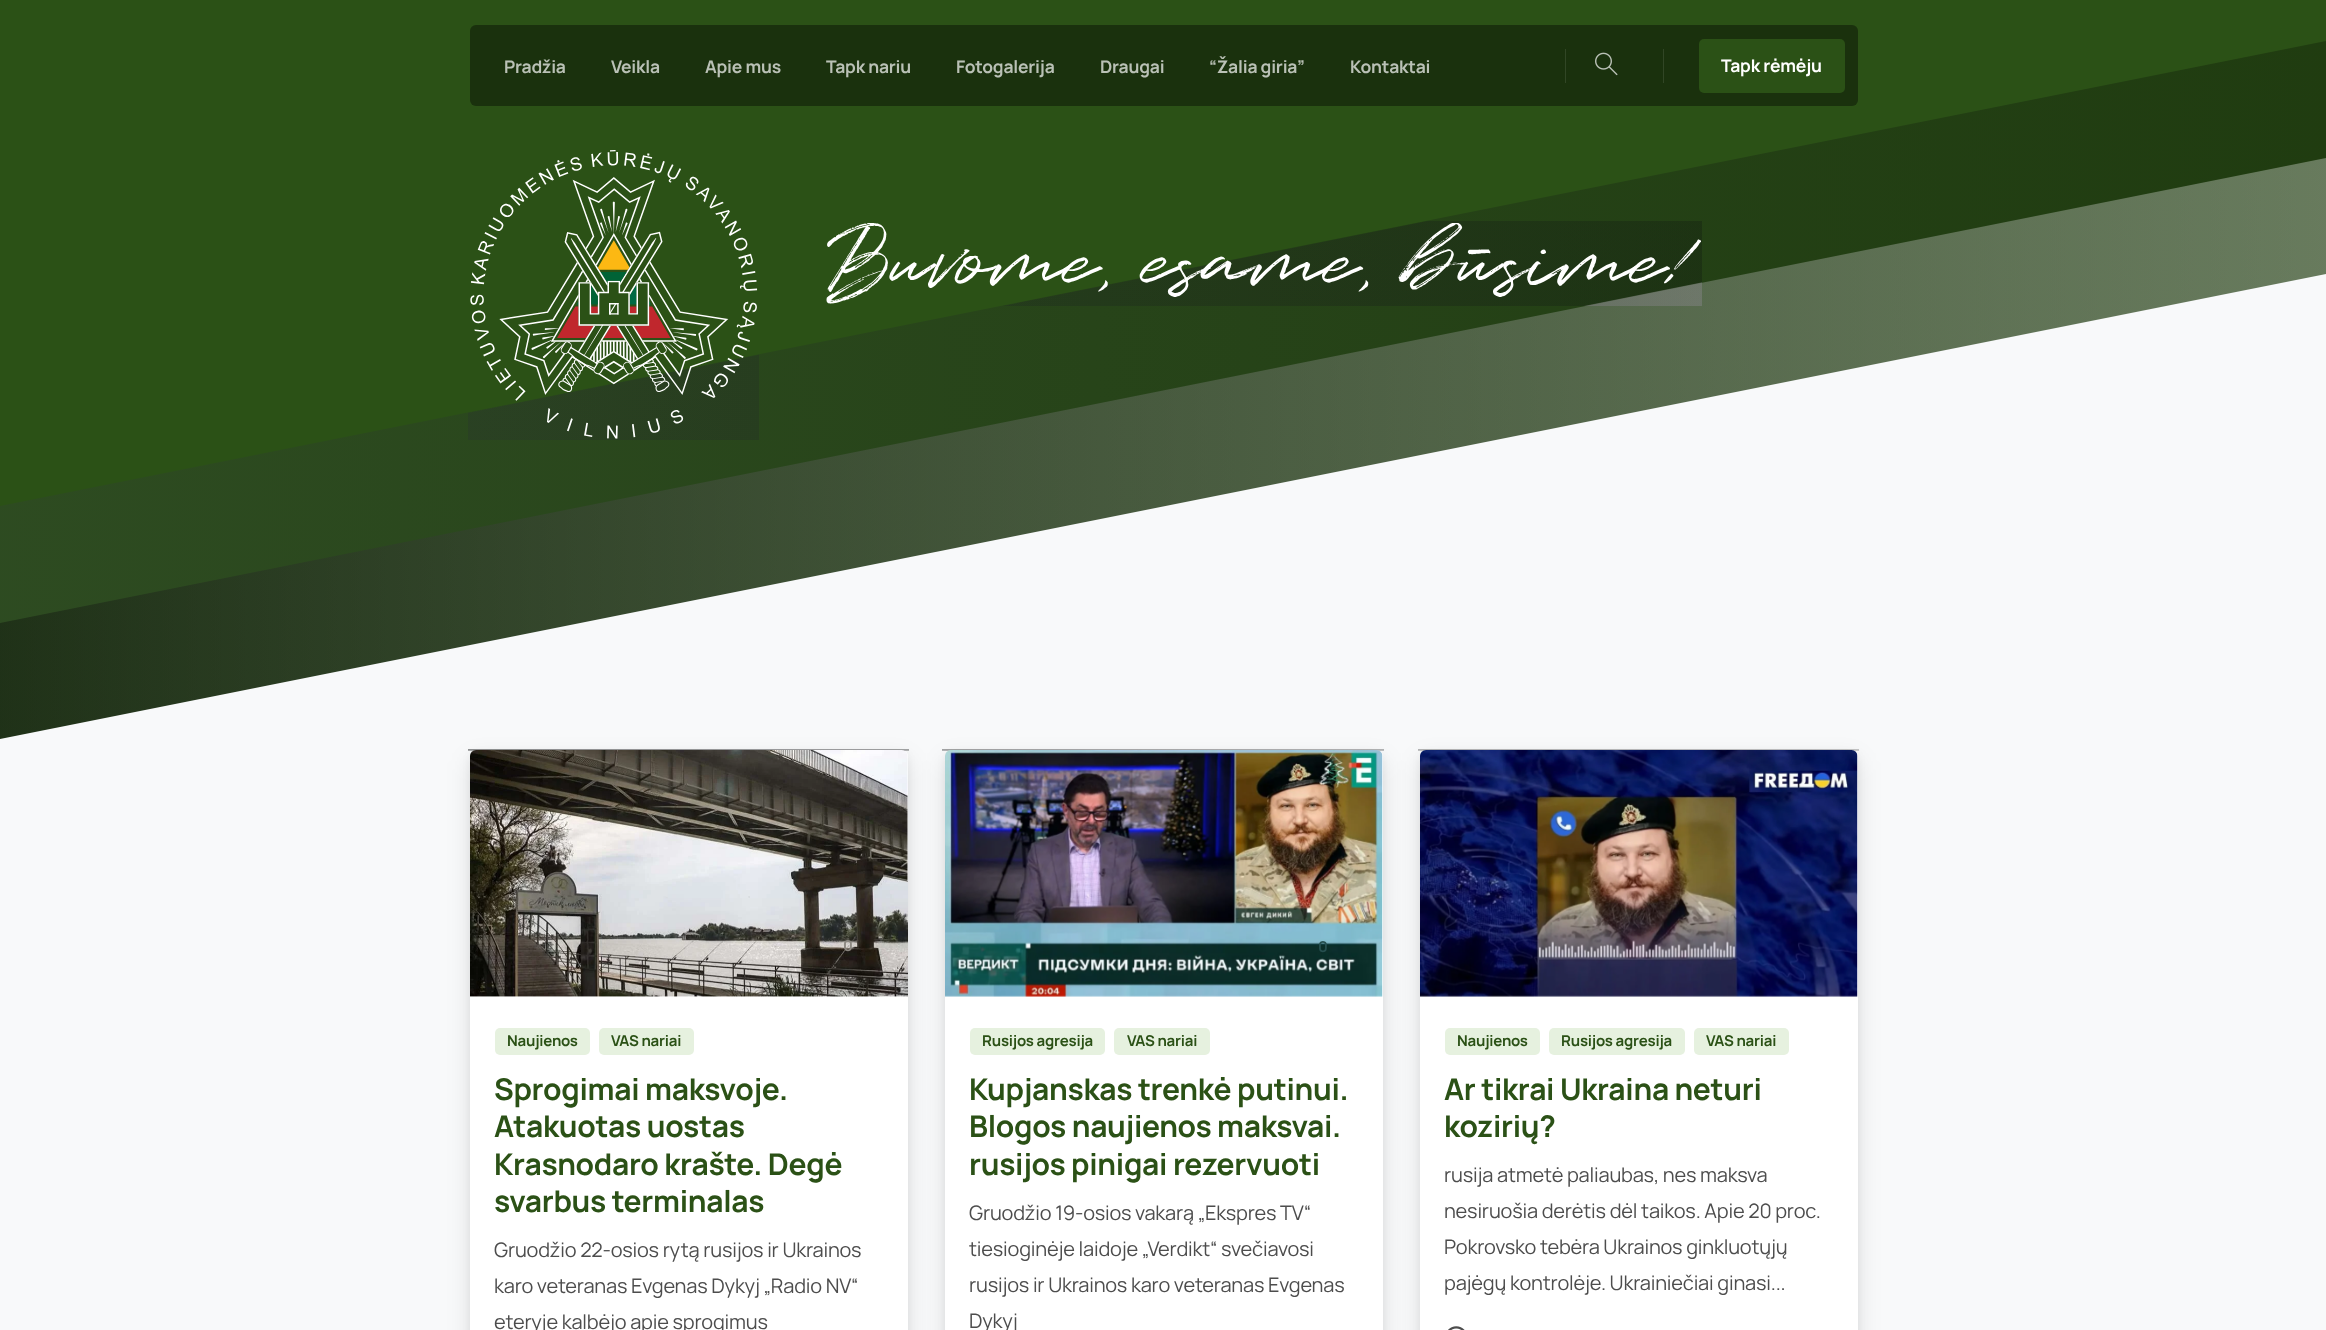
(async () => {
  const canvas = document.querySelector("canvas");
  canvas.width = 2326;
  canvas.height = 1330;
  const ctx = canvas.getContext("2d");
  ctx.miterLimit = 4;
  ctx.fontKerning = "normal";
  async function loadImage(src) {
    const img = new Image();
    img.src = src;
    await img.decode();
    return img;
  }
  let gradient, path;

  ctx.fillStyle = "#f8f9fa";
  ctx.fillRect(0, 0, 2326, 1330);
  ctx.fillStyle = "#2b5116";
  ctx.fillRect(0, 0, 2326, 739);
  gradient = ctx.createLinearGradient(0, 41, 2326, 41);
  gradient.addColorStop(0, "rgba(52, 58, 64, 0.26)");
  gradient.addColorStop(1, "rgba(0, 0, 0, 0.26)");
  ctx.fillStyle = gradient;
  path = new Path2D("M0 506L2326 41V751H0Z");
  ctx.fill(path);
  ctx.fillStyle = "#1a310d";
  ctx.beginPath();
  ctx.roundRect(470, 25, 1388, 81, 6);
  ctx.fill();
  ctx.fillStyle = "#314625";
  ctx.fillRect(1565, 49, 1, 34);
  ctx.drawImage(await loadImage("img/1.png"), 1595, 52, 23, 24);
  ctx.fillRect(1663, 49, 1, 34);
  ctx.fillStyle = "#2b5116";
  ctx.beginPath();
  ctx.roundRect(1699, 39, 146, 54, 5);
  ctx.fill();
  gradient = ctx.createLinearGradient(0, 158, 2326, 158);
  gradient.addColorStop(0, "rgba(10, 10, 10, 0.39)");
  gradient.addColorStop(1, "rgba(255, 255, 255, 0.32)");
  ctx.fillStyle = gradient;
  path = new Path2D("M0 623L2326 158V751H0Z");
  ctx.fill(path);
  ctx.fillStyle = "#f8f9fa";
  path = new Path2D("M0 739L2326 274V751H0Z");
  ctx.fill(path);
  ctx.drawImage(await loadImage("img/2.png"), 468, 150, 291, 290);
  ctx.drawImage(await loadImage("img/3.png"), 826, 221, 876, 85);
  ctx.fillStyle = "rgba(0, 0, 0, 0.1)";
  ctx.filter = "blur(12px)";
  ctx.beginPath();
  ctx.roundRect(470, 760, 438, 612, 6);
  ctx.fill();
  ctx.filter = "none";
  ctx.fillStyle = "rgba(0, 0, 0, 0.05)";
  ctx.filter = "blur(4px)";
  ctx.beginPath();
  ctx.roundRect(470, 753, 438, 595, 6);
  ctx.fill();
  ctx.filter = "none";
  ctx.fillStyle = "#ffffff";
  ctx.beginPath();
  ctx.roundRect(470, 750, 438, 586, 6);
  ctx.fill();
  ctx.drawImage(await loadImage("img/4.png"), 468, 749, 441, 248);
  ctx.fillStyle = "#e6f1df";
  ctx.beginPath();
  ctx.roundRect(495, 1028, 95, 27, 5);
  ctx.fill();
  ctx.beginPath();
  ctx.roundRect(599, 1028, 95, 27, 5);
  ctx.fill();
  ctx.fillStyle = "rgba(0, 0, 0, 0.1)";
  ctx.filter = "blur(12px)";
  ctx.beginPath();
  ctx.roundRect(945, 760, 438, 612, 6);
  ctx.fill();
  ctx.filter = "none";
  ctx.fillStyle = "rgba(0, 0, 0, 0.05)";
  ctx.filter = "blur(4px)";
  ctx.beginPath();
  ctx.roundRect(945, 753, 438, 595, 6);
  ctx.fill();
  ctx.filter = "none";
  ctx.fillStyle = "#ffffff";
  ctx.beginPath();
  ctx.roundRect(945, 750, 438, 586, 6);
  ctx.fill();
  ctx.drawImage(await loadImage("img/5.png"), 942, 749, 442, 248);
  ctx.fillStyle = "#e6f1df";
  ctx.beginPath();
  ctx.roundRect(970, 1028, 135, 27, 5);
  ctx.fill();
  ctx.beginPath();
  ctx.roundRect(1114, 1028, 96, 27, 5);
  ctx.fill();
  ctx.fillStyle = "rgba(0, 0, 0, 0.1)";
  ctx.filter = "blur(12px)";
  ctx.beginPath();
  ctx.roundRect(1420, 760, 438, 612, 6);
  ctx.fill();
  ctx.filter = "none";
  ctx.fillStyle = "rgba(0, 0, 0, 0.05)";
  ctx.filter = "blur(4px)";
  ctx.beginPath();
  ctx.roundRect(1420, 753, 438, 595, 6);
  ctx.fill();
  ctx.filter = "none";
  ctx.fillStyle = "#ffffff";
  ctx.beginPath();
  ctx.roundRect(1420, 750, 438, 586, 6);
  ctx.fill();
  ctx.drawImage(await loadImage("img/6.png"), 1418, 749, 441, 248);
  ctx.fillStyle = "#e6f1df";
  ctx.beginPath();
  ctx.roundRect(1445, 1028, 95, 27, 5);
  ctx.fill();
  ctx.beginPath();
  ctx.roundRect(1549, 1028, 136, 27, 5);
  ctx.fill();
  ctx.beginPath();
  ctx.roundRect(1694, 1028, 95, 27, 5);
  ctx.fill();
  ctx.drawImage(await loadImage("img/7.png"), 1448, 1326, 17, 4);
  ctx.letterSpacing = "-0.2px";
  ctx.font = "bold 17.5px Manrope";
  ctx.fillStyle = "#bac1b6";
  for (const [text, x, y] of [
    ["Pradžia", 504, 73],
    ["Veikla", 611, 73],
    ["Apie mus", 705, 73],
    ["Tapk nariu", 826, 73],
    ["Fotogalerija", 956, 73],
    ["Draugai", 1100, 73],
    ["“Žalia giria”", 1209, 73],
    ["Kontaktai", 1350, 73],
  ]) {
    ctx.fillText(text, x, y);
  }
  ctx.fillStyle = "#ffffff";
  ctx.fillText("Tapk rėmėju", 1721, 72);
  ctx.font = "bold 15px Manrope";
  ctx.fillStyle = "#8b8780";
  ctx.fillText("0", 843, 951);
  ctx.fillStyle = "#2b5116";
  ctx.fillText("Naujienos", 507, 1046);
  ctx.fillText("VAS nariai", 611, 1046);
  ctx.letterSpacing = "-0.3px";
  ctx.font = "bold 30px Manrope";
  for (const [text, x, y] of [
    ["Sprogimai maksvoje.", 494, 1100],
    ["Atakuotas uostas", 494, 1137],
    ["Krasnodaro krašte. Degė", 494, 1175],
    ["svarbus terminalas", 494, 1212],
  ]) {
    ctx.fillText(text, x, y);
  }
  ctx.letterSpacing = "-0.2px";
  ctx.font = "20px Manrope";
  ctx.fillStyle = "#4d4d4d";
  for (const [text, x, y] of [
    ["Gruodžio 22-osios rytą rusijos ir Ukrainos", 494, 1257],
    ["karo veteranas Evgenas Dykyj „Radio NV“", 494, 1293],
    ["eteryje kalbėjo apie sprogimus", 494, 1329],
  ]) {
    ctx.fillText(text, x, y);
  }
  ctx.font = "bold 15px Manrope";
  ctx.fillStyle = "#264f4f";
  ctx.fillText("0", 1318, 952);
  ctx.fillStyle = "#2b5116";
  ctx.fillText("Rusijos agresija", 982, 1046);
  ctx.fillText("VAS nariai", 1127, 1046);
  ctx.letterSpacing = "-0.3px";
  ctx.font = "bold 30px Manrope";
  for (const [text, x, y] of [
    ["Kupjanskas trenkė putinui.", 969, 1100],
    ["Blogos naujienos maksvai.", 969, 1137],
    ["rusijos pinigai rezervuoti", 969, 1175],
  ]) {
    ctx.fillText(text, x, y);
  }
  ctx.letterSpacing = "-0.2px";
  ctx.font = "20px Manrope";
  ctx.fillStyle = "#4d4d4d";
  for (const [text, x, y] of [
    ["Gruodžio 19-osios vakarą „Ekspres TV“", 969, 1220],
    ["tiesioginėje laidoje „Verdikt“ svečiavosi", 969, 1256],
    ["rusijos ir Ukrainos karo veteranas Evgenas", 969, 1292],
    ["Dykyj", 969, 1328],
  ]) {
    ctx.fillText(text, x, y);
  }
  ctx.font = "bold 15px Manrope";
  ctx.fillStyle = "#2b5116";
  for (const [text, x, y] of [
    ["Naujienos", 1457, 1046],
    ["Rusijos agresija", 1561, 1046],
    ["VAS nariai", 1706, 1046],
  ]) {
    ctx.fillText(text, x, y);
  }
  ctx.letterSpacing = "-0.3px";
  ctx.font = "bold 30px Manrope";
  ctx.fillText("Ar tikrai Ukraina neturi", 1444, 1100);
  ctx.fillText("kozirių?", 1444, 1137);
  ctx.letterSpacing = "-0.2px";
  ctx.font = "20px Manrope";
  ctx.fillStyle = "#4d4d4d";
  for (const [text, x, y] of [
    ["rusija atmetė paliaubas, nes maksva", 1444, 1182],
    ["nesiruošia derėtis dėl taikos. Apie 20 proc.", 1444, 1218],
    ["Pokrovsko tebėra Ukrainos ginkluotųjų", 1444, 1254],
    ["pajėgų kontrolėje. Ukrainiečiai ginasi...", 1444, 1290],
  ]) {
    ctx.fillText(text, x, y);
  }
})();
